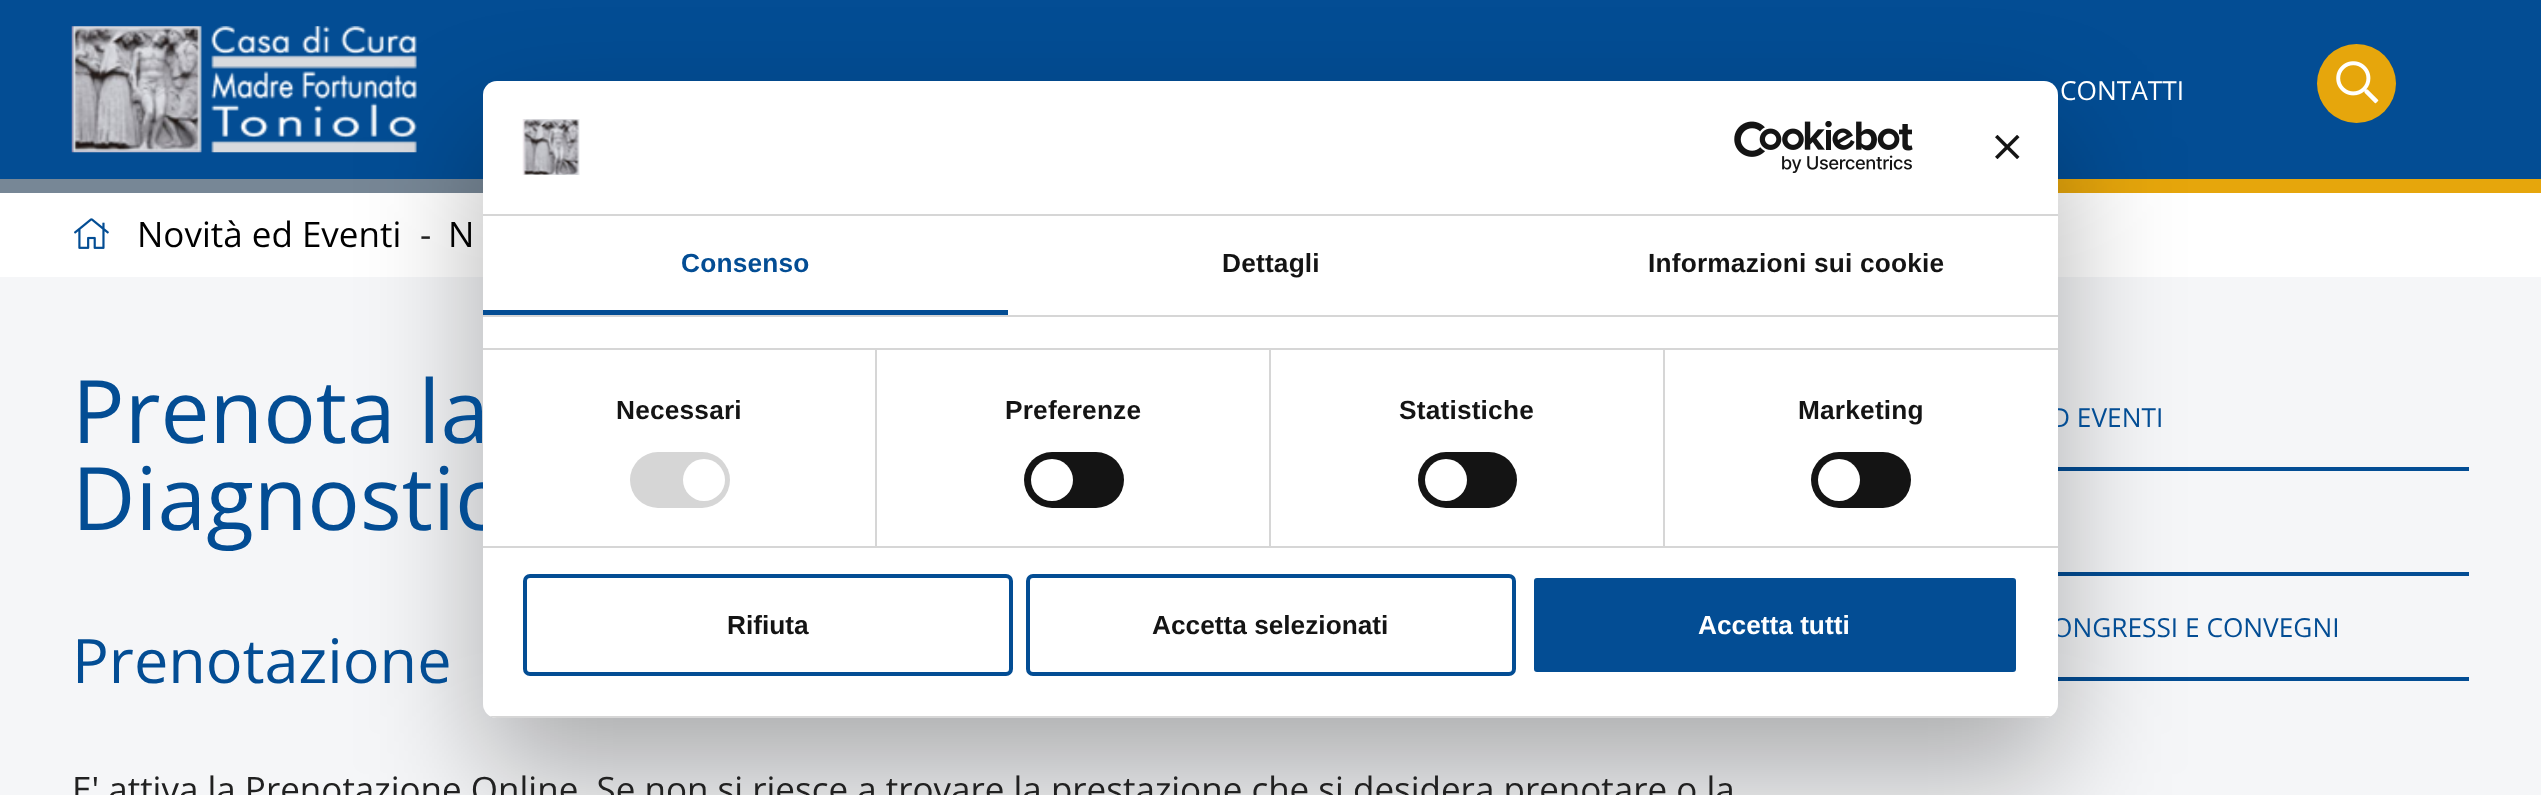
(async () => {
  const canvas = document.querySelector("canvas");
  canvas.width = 2541;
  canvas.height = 795;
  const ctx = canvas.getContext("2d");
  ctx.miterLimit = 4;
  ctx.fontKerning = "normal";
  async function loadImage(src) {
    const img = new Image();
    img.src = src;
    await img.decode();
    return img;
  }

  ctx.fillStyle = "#ffffff";
  ctx.fillRect(0, 0, 2541, 795);
  ctx.fillStyle = "#034d94";
  ctx.fillRect(0, 0, 2541, 179);
  ctx.fillStyle = "#778796";
  ctx.fillRect(0, 179, 483, 14);
  ctx.drawImage(await loadImage("img/1.png"), 71, 26, 346, 127);
  ctx.fillStyle = "#e6a60c";
  ctx.beginPath();
  ctx.arc(2356.5, 83.5, 39.5, 0, Math.PI * 2);
  ctx.fill();
  ctx.drawImage(await loadImage("img/2.png"), 2336, 61, 43, 43);
  ctx.fillRect(2058, 179, 483, 14);
  ctx.fillStyle = "#f5f6f8";
  ctx.fillRect(0, 277, 2541, 518);
  ctx.drawImage(await loadImage("img/3.png"), 74, 218, 35, 31);
  for (const [x, y, w, h, color] of [
    [2058, 467, 411, 4, "#034d94"],
    [2058, 572, 411, 4, "#034d94"],
    [2058, 677, 411, 4, "#034d94"],
  ]) {
    ctx.fillStyle = color;
    ctx.fillRect(x, y, w, h);
  }
  ctx.fillStyle = "rgba(0, 0, 0, 0.3)";
  ctx.filter = "blur(59.5px)";
  ctx.beginPath();
  ctx.roundRect(483, 137, 1575, 637, 14);
  ctx.fill();
  ctx.filter = "none";
  ctx.font = "26.25px Open Sans";
  ctx.fillStyle = "#ffffff";
  ctx.fillText("CONTATTI", 2060, 100);
  ctx.font = "35px Open Sans";
  ctx.fillStyle = "#000000";
  ctx.fillText("Novità ed Eventi", 137, 247);
  ctx.fillStyle = "#212121";
  ctx.fillText("-", 420, 247);
  ctx.fillStyle = "#000000";
  ctx.fillText("N", 448, 247);
  ctx.font = "87.5px Open Sans";
  ctx.fillStyle = "#034d94";
  ctx.fillText("Prenota la", 72, 443);
  ctx.fillText("Diagnostic", 72, 530);
  ctx.font = "61.25px Open Sans";
  ctx.fillText("Prenotazione", 72, 683);
  ctx.font = "35px Open Sans";
  ctx.fillStyle = "#212121";
  ctx.fillText("E' attiva la Prenotazione Online. Se non si riesce a trovare la prestazione che si desidera prenotare o la", 72, 802);
  ctx.font = "26.25px Open Sans";
  ctx.fillStyle = "#034d94";
  ctx.fillText("D EVENTI", 2051, 427);
  ctx.fillText("ONGRESSI E CONVEGNI", 2052, 637);
  ctx.fillStyle = "#ffffff";
  ctx.beginPath();
  ctx.roundRect(483, 81, 1575, 637, 14);
  ctx.fill();
  ctx.fillStyle = "#034d94";
  ctx.beginPath();
  ctx.roundRect(1532, 576, 486, 98, 5);
  ctx.fill();
  ctx.strokeStyle = "#ffffff";
  ctx.lineWidth = 4;
  ctx.stroke();
  ctx.font = "bold 26.25px Liberation Sans";
  ctx.fillStyle = "#ffffff";
  ctx.fillText("Accetta tutti", 1698, 634);
  ctx.beginPath();
  ctx.roundRect(1028, 576, 486, 98, 5);
  ctx.strokeStyle = "#034d94";
  ctx.stroke();
  ctx.fillStyle = "#141414";
  ctx.fillText("Accetta selezionati", 1152, 634);
  ctx.beginPath();
  ctx.roundRect(525, 576, 486, 98, 5);
  ctx.stroke();
  ctx.fillText("Rifiuta", 727, 634);
  ctx.save();
  ctx.beginPath();
  ctx.roundRect(483, 81, 1575, 637, 14);
  ctx.clip();
  ctx.fillStyle = "#d6d6d6";
  ctx.fillRect(483, 716, 1575, 2);
  ctx.restore();
  ctx.beginPath();
  ctx.roundRect(1811, 452, 100, 56, 28);
  ctx.fill();
  ctx.fillStyle = "#ffffff";
  ctx.beginPath();
  ctx.arc(1839, 480, 21, 0, Math.PI * 2);
  ctx.fill();
  ctx.fillStyle = "#141414";
  ctx.beginPath();
  ctx.roundRect(1418, 452, 99, 56, 28);
  ctx.fill();
  ctx.fillStyle = "#ffffff";
  ctx.beginPath();
  ctx.arc(1446, 480, 21, 0, Math.PI * 2);
  ctx.fill();
  ctx.fillStyle = "#141414";
  ctx.beginPath();
  ctx.roundRect(1024, 452, 100, 56, 28);
  ctx.fill();
  ctx.fillStyle = "#ffffff";
  ctx.beginPath();
  ctx.arc(1052, 480, 21, 0, Math.PI * 2);
  ctx.fill();
  ctx.fillStyle = "#d6d6d6";
  ctx.beginPath();
  ctx.roundRect(630, 452, 100, 56, 28);
  ctx.fill();
  ctx.fillStyle = "#ffffff";
  ctx.beginPath();
  ctx.arc(704, 480, 21, 0, Math.PI * 2);
  ctx.fill();
  ctx.fillStyle = "#d6d6d6";
  ctx.fillRect(483, 348, 1575, 2);
  ctx.letterSpacing = "0.2px";
  ctx.fillStyle = "#141414";
  ctx.fillText("Informazioni sui cookie", 1648, 272);
  ctx.fillText("Dettagli", 1222, 272);
  ctx.fillStyle = "#034d94";
  ctx.fillText("Consenso", 681, 272);
  ctx.fillRect(483, 310, 525, 5);
  ctx.fillStyle = "#d6d6d6";
  ctx.fillRect(483, 315, 1575, 2);
  ctx.fillStyle = "#141414";
  ctx.fillText("Marketing", 1798, 419);
  ctx.fillText("Statistiche", 1399, 419);
  ctx.fillStyle = "#d6d6d6";
  ctx.fillRect(1663, 350, 2, 196);
  ctx.fillStyle = "#141414";
  ctx.fillText("Preferenze", 1005, 419);
  ctx.fillStyle = "#d6d6d6";
  ctx.fillRect(1269, 350, 2, 196);
  ctx.fillStyle = "#141414";
  ctx.fillText("Necessari", 616, 419);
  ctx.fillStyle = "#d6d6d6";
  ctx.fillRect(875, 350, 2, 196);
  ctx.fillRect(483, 546, 1575, 2);
  ctx.drawImage(await loadImage("img/6.png"), 1995, 135, 25, 24);
  ctx.drawImage(await loadImage("img/5.png"), 1734, 121, 179, 52);
  ctx.drawImage(await loadImage("img/4.png"), 522, 119, 58, 56);
  ctx.fillRect(483, 214, 1575, 2);
})();
